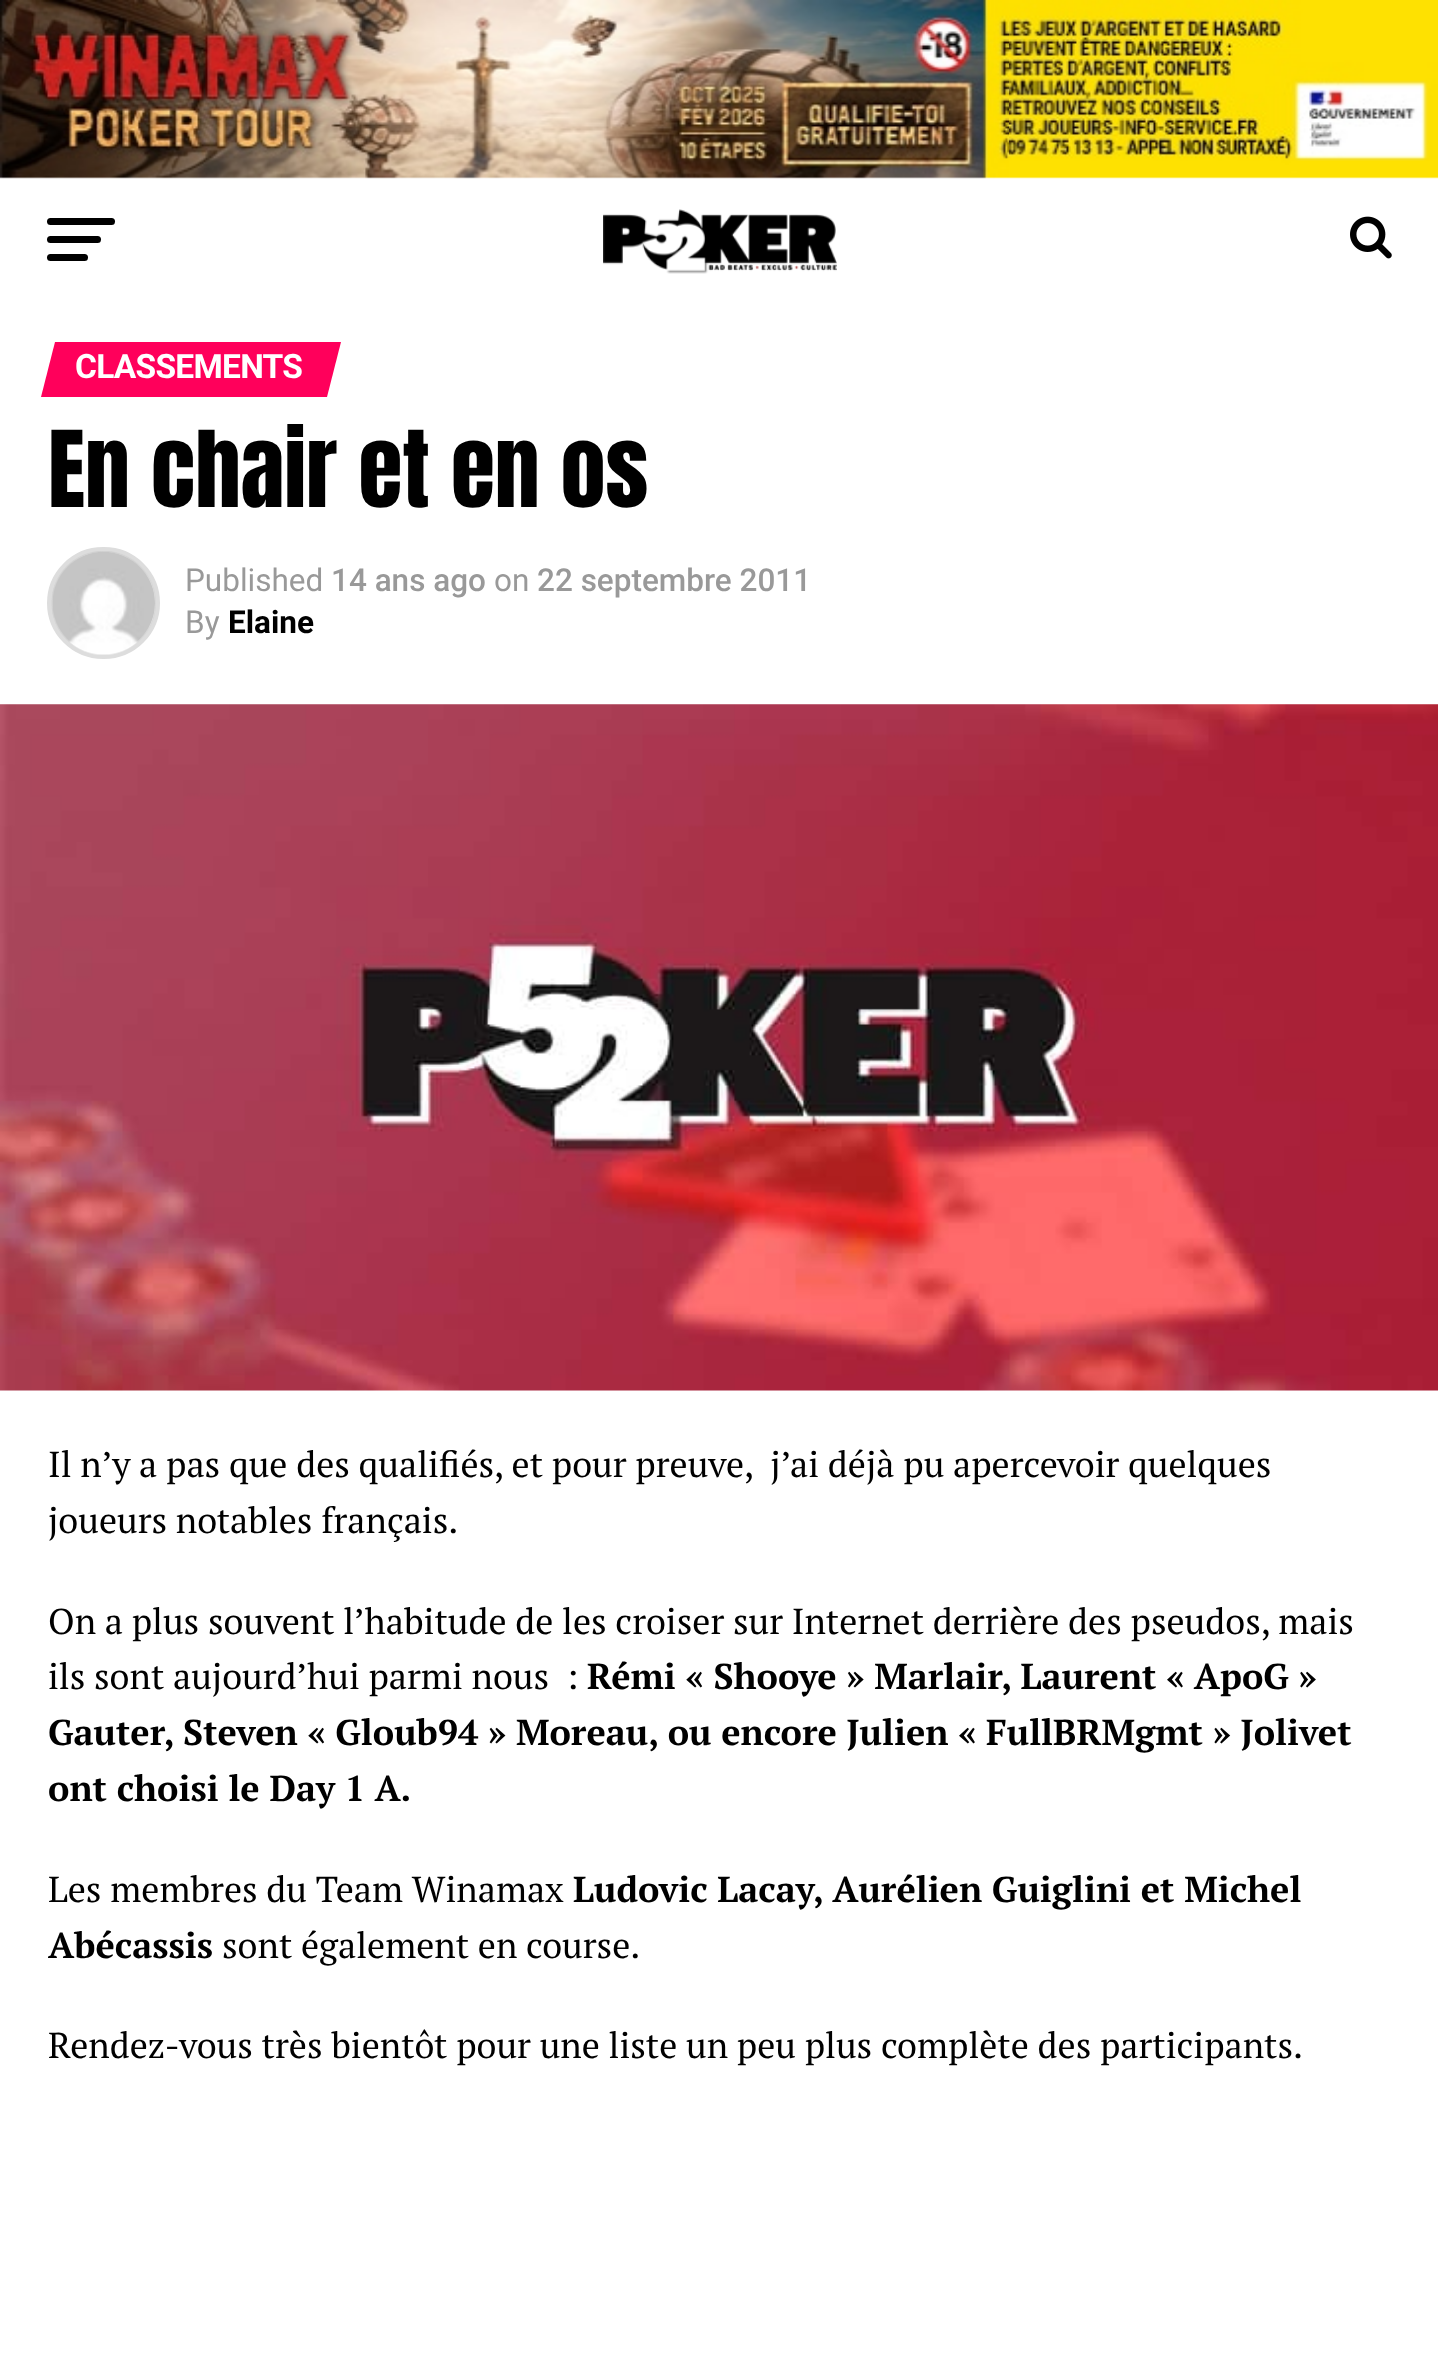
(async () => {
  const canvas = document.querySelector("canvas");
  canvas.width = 1438;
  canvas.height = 2359;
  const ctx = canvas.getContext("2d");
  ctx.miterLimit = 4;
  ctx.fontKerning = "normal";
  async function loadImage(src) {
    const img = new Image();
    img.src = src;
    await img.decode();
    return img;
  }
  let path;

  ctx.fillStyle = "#ffffff";
  ctx.fillRect(0, 0, 1438, 2359);
  ctx.drawImage(await loadImage("img/1.png"), 0, 0, 1438, 179);
  ctx.fillStyle = "#000000";
  ctx.beginPath();
  ctx.roundRect(47, 218, 68, 7, 3.5);
  ctx.fill();
  ctx.beginPath();
  ctx.roundRect(47, 236, 54, 7, 3.5);
  ctx.fill();
  ctx.beginPath();
  ctx.roundRect(47, 254, 41, 7, 3.5);
  ctx.fill();
  ctx.drawImage(await loadImage("img/2.png"), 603, 209, 234, 65);
  ctx.drawImage(await loadImage("img/3.png"), 1350, 216, 42, 43);
  ctx.fillStyle = "#ff005b";
  path = new Path2D("M55 342H341L327 397H41Z");
  ctx.fill(path);
  ctx.beginPath();
  ctx.roundRect(49.5, 549.5, 108, 107, 53.5);
  ctx.strokeStyle = "#dddddd";
  ctx.lineWidth = 5;
  ctx.stroke();
  ctx.drawImage(await loadImage("img/4.png"), 51, 551, 105, 104);
  ctx.drawImage(await loadImage("img/5.png"), 0, 704, 1438, 687);
  ctx.letterSpacing = "-0.75px";
  ctx.font = "bold 33.5px Roboto";
  ctx.fillStyle = "#ffffff";
  ctx.fillText("CLASSEMENTS", 75, 378);
  ctx.letterSpacing = "0px";
  ctx.font = "90px Anton";
  ctx.fillStyle = "#000000";
  ctx.fillText("En chair et en os", 48, 507);
  ctx.font = "31.5px Roboto";
  ctx.fillStyle = "#999999";
  ctx.fillText("Published", 185, 591);
  ctx.font = "500 31.5px Roboto";
  ctx.fillText("14 ans ago", 331, 591);
  ctx.font = "31.5px Roboto";
  ctx.fillText("on", 494, 591);
  ctx.font = "500 31.5px Roboto";
  ctx.fillText("22 septembre 2011", 537, 591);
  ctx.font = "31.5px Roboto";
  ctx.fillText("By", 185, 633);
  ctx.font = "bold 31.5px Roboto";
  ctx.fillStyle = "#000000";
  ctx.fillText("Elaine", 228, 633);
  ctx.font = "36px PT Serif";
  for (const [text, x, y] of [
    ["Il n’y a pas que des qualifiés, et pour preuve,  j’ai déjà pu apercevoir quelques", 48, 1477],
    ["joueurs notables français.", 48, 1533],
    ["On a plus souvent l’habitude de les croiser sur Internet derrière des pseudos, mais", 48, 1634],
    ["ils sont aujourd’hui parmi nous  :", 48, 1689],
  ]) {
    ctx.fillText(text, x, y);
  }
  ctx.font = "bold 36px PT Serif";
  for (const [text, x, y] of [
    ["Rémi « Shooye » Marlair, Laurent « ApoG »", 587, 1689],
    ["Gauter, Steven « Gloub94 » Moreau, ou encore Julien « FullBRMgmt » Jolivet", 48, 1745],
    ["ont choisi le Day 1 A.", 48, 1801],
  ]) {
    ctx.fillText(text, x, y);
  }
  ctx.font = "36px PT Serif";
  ctx.fillText("Les membres du Team Winamax", 48, 1902);
  ctx.font = "bold 36px PT Serif";
  ctx.fillText("Ludovic Lacay, Aurélien Guiglini et Michel", 573, 1902);
  ctx.fillText("Abécassis", 48, 1958);
  ctx.font = "36px PT Serif";
  ctx.fillText("sont également en course.", 222, 1958);
  ctx.fillText("Rendez-vous très bientôt pour une liste un peu plus complète des participants.", 48, 2058);
})();
